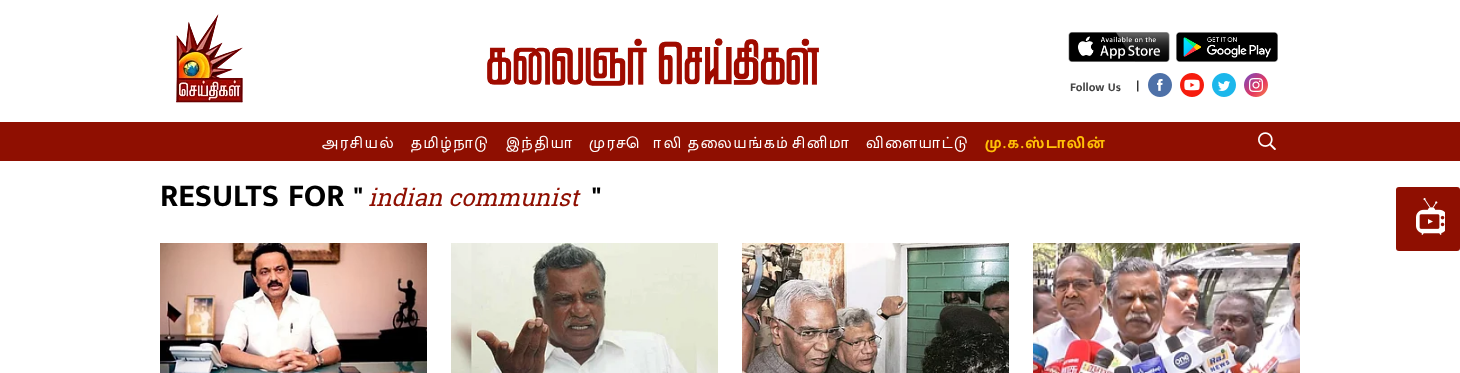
(async () => {
  const canvas = document.querySelector("canvas");
  canvas.width = 1460;
  canvas.height = 373;
  const ctx = canvas.getContext("2d");
  ctx.miterLimit = 4;
  ctx.fontKerning = "normal";
  async function loadImage(src) {
    const img = new Image();
    img.src = src;
    await img.decode();
    return img;
  }

  ctx.fillStyle = "#ffffff";
  ctx.fillRect(0, 0, 1460, 373);
  ctx.drawImage(await loadImage("img/1.png"), 176, 14, 67, 89);
  ctx.drawImage(await loadImage("img/2.png"), 487, 38, 332, 48);
  ctx.drawImage(await loadImage("img/3.png"), 1068, 32, 102, 30);
  ctx.drawImage(await loadImage("img/4.png"), 1176, 32, 102, 30);
  ctx.drawImage(await loadImage("img/5.png"), 1148, 73, 24, 24);
  ctx.drawImage(await loadImage("img/6.png"), 1180, 73, 24, 24);
  ctx.drawImage(await loadImage("img/7.png"), 1212, 73, 24, 24);
  ctx.drawImage(await loadImage("img/8.png"), 1244, 73, 24, 24);
  ctx.fillStyle = "#8f0f01";
  ctx.fillRect(0, 122, 1460, 39);
  ctx.drawImage(await loadImage("img/9.png"), 1258, 132, 18, 18);
  ctx.drawImage(await loadImage("img/10.png"), 160, 243, 267, 130);
  ctx.drawImage(await loadImage("img/11.png"), 451, 243, 267, 130);
  ctx.drawImage(await loadImage("img/12.png"), 742, 243, 267, 130);
  ctx.drawImage(await loadImage("img/13.png"), 1033, 243, 267, 130);
  ctx.beginPath();
  ctx.roundRect(1396, 187, 64, 64, 3);
  ctx.fill();
  ctx.drawImage(await loadImage("img/14.png"), 1416, 198, 29, 37);
  ctx.font = "bold 12px Mukta Malar";
  ctx.fillStyle = "#434343";
  ctx.fillText("Follow Us", 1070, 91);
  ctx.font = "16px Mukta Malar";
  ctx.fillStyle = "#000000";
  ctx.fillText("|", 1136, 90);
  ctx.letterSpacing = "1.75px";
  ctx.fillStyle = "#ffffff";
  for (const [text, x, y] of [
    ["அரசியல்", 322, 148],
    ["தமிழ்நாடு", 411, 148],
    ["இந்தியா", 506, 148],
  ]) {
    ctx.fillText(text, x, y);
  }
  ctx.wordSpacing = "-1px";
  ctx.fillText("முரசொலி தலையங்கம்", 589, 148);
  ctx.wordSpacing = "0px";
  ctx.fillText("சினிமா", 792, 148);
  ctx.fillText("விளையாட்டு", 866, 148);
  ctx.font = "bold 16px Mukta Malar";
  ctx.fillStyle = "#ffc007";
  ctx.fillText("மு.க.ஸ்டாலின்", 985, 148);
  ctx.letterSpacing = "0px";
  ctx.font = "bold 32px Mukta Malar";
  ctx.fillStyle = "#000000";
  ctx.fillText("RESULTS FOR \"", 160, 206);
  ctx.font = "italic 24px Roboto Slab";
  ctx.fillStyle = "#8f0f01";
  ctx.fillText("indian communist", 368, 206);
  ctx.font = "bold 32px Mukta Malar";
  ctx.fillStyle = "#000000";
  ctx.fillText("\"", 592, 206);
})();
